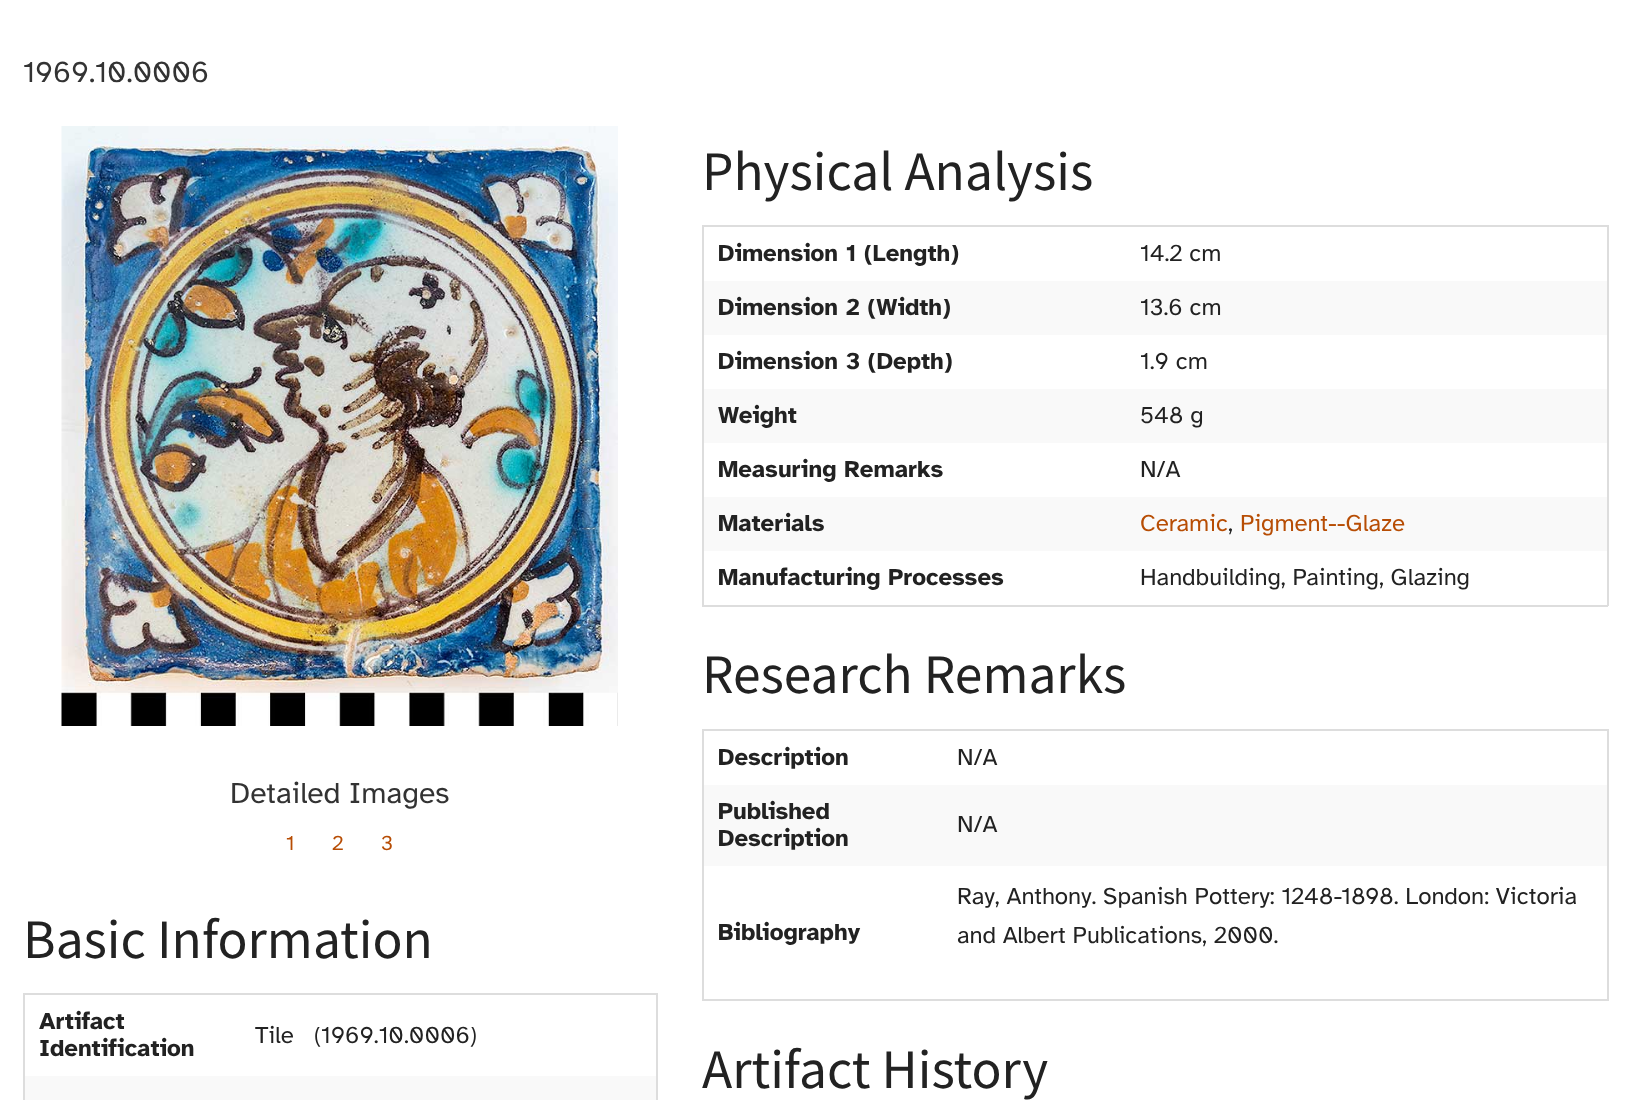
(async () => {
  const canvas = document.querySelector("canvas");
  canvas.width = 1630;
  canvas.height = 1100;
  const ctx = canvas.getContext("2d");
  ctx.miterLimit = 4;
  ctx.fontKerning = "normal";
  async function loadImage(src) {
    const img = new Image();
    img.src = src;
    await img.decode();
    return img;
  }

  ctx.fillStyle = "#ffffff";
  ctx.fillRect(0, 0, 1630, 1100);
  ctx.drawImage(await loadImage("img/1.png"), 61, 126, 557, 600);
  for (const [x, y, w, h, color] of [
    [23, 993, 634, 2, "#dddddd"],
    [656, 993, 2, 107, "#dddddd"],
    [23, 993, 2, 107, "#dddddd"],
    [25, 1076, 631, 24, "#f9f9f9"],
    [702, 225, 906, 2, "#dddddd"],
    [1607, 225, 2, 381, "#dddddd"],
    [702, 605, 906, 2, "#dddddd"],
    [702, 225, 2, 381, "#dddddd"],
    [704, 281, 903, 54, "#f9f9f9"],
    [704, 389, 903, 54, "#f9f9f9"],
    [704, 497, 903, 54, "#f9f9f9"],
    [702, 729, 906, 2, "#dddddd"],
    [1607, 729, 2, 272, "#dddddd"],
    [702, 999, 906, 2, "#dddddd"],
    [702, 729, 2, 272, "#dddddd"],
    [704, 785, 903, 81, "#f9f9f9"],
  ]) {
    ctx.fillStyle = color;
    ctx.fillRect(x, y, w, h);
  }
  ctx.font = "30px Atkinson Hyperlegible";
  ctx.fillStyle = "#333333";
  ctx.fillText("1969.10.0006", 23, 82);
  ctx.fillText("Detailed Images", 230, 803);
  ctx.font = "21px Atkinson Hyperlegible";
  ctx.fillStyle = "#b74d04";
  for (const [text, x, y] of [
    ["1", 286, 850],
    ["2", 332, 850],
    ["3", 381, 850],
  ]) {
    ctx.fillText(text, x, y);
  }
  ctx.font = "55.5px Source Sans Pro";
  ctx.fillStyle = "#222222";
  ctx.fillText("Basic Information", 23, 958);
  ctx.font = "bold 24px Atkinson Hyperlegible";
  ctx.fillText("Artifact", 39, 1029);
  ctx.fillText("Identification", 39, 1056);
  ctx.font = "24px Atkinson Hyperlegible";
  ctx.fillText("Tile   (1969.10.0006)", 255, 1043);
  ctx.font = "55.5px Source Sans Pro";
  ctx.fillText("Physical Analysis", 702, 190);
  ctx.font = "bold 24px Atkinson Hyperlegible";
  ctx.fillText("Dimension 1 (Length)", 718, 261);
  ctx.font = "24px Atkinson Hyperlegible";
  ctx.fillText("14.2 cm", 1140, 261);
  ctx.font = "bold 24px Atkinson Hyperlegible";
  ctx.fillText("Dimension 2 (Width)", 718, 315);
  ctx.font = "24px Atkinson Hyperlegible";
  ctx.fillText("13.6 cm", 1140, 315);
  ctx.font = "bold 24px Atkinson Hyperlegible";
  ctx.fillText("Dimension 3 (Depth)", 718, 369);
  ctx.font = "24px Atkinson Hyperlegible";
  ctx.fillText("1.9 cm", 1140, 369);
  ctx.font = "bold 24px Atkinson Hyperlegible";
  ctx.fillText("Weight", 718, 423);
  ctx.font = "24px Atkinson Hyperlegible";
  ctx.fillText("548 g", 1140, 423);
  ctx.font = "bold 24px Atkinson Hyperlegible";
  ctx.fillText("Measuring Remarks", 718, 477);
  ctx.font = "24px Atkinson Hyperlegible";
  ctx.fillText("N/A", 1140, 477);
  ctx.font = "bold 24px Atkinson Hyperlegible";
  ctx.fillText("Materials", 718, 531);
  ctx.font = "24px Atkinson Hyperlegible";
  ctx.fillStyle = "#b74d04";
  ctx.fillText("Ceramic", 1140, 531);
  ctx.fillStyle = "#222222";
  ctx.fillText(",", 1228, 531);
  ctx.fillStyle = "#b74d04";
  ctx.fillText("Pigment--Glaze", 1240, 531);
  ctx.font = "bold 24px Atkinson Hyperlegible";
  ctx.fillStyle = "#222222";
  ctx.fillText("Manufacturing Processes", 718, 585);
  ctx.font = "24px Atkinson Hyperlegible";
  ctx.fillText("Handbuilding, Painting, Glazing", 1140, 585);
  ctx.font = "55.5px Source Sans Pro";
  ctx.fillText("Research Remarks", 702, 693);
  ctx.font = "bold 24px Atkinson Hyperlegible";
  ctx.fillText("Description", 718, 765);
  ctx.font = "24px Atkinson Hyperlegible";
  ctx.fillText("N/A", 957, 765);
  ctx.font = "bold 24px Atkinson Hyperlegible";
  ctx.fillText("Published", 718, 819);
  ctx.fillText("Description", 718, 846);
  ctx.font = "24px Atkinson Hyperlegible";
  ctx.fillText("N/A", 957, 832);
  ctx.font = "bold 24px Atkinson Hyperlegible";
  ctx.fillText("Bibliography", 718, 940);
  ctx.font = "24px Atkinson Hyperlegible";
  ctx.fillText("Ray, Anthony. Spanish Pottery: 1248-1898. London: Victoria", 957, 904);
  ctx.fillText("and Albert Publications, 2000.", 957, 943);
  ctx.font = "55.5px Source Sans Pro";
  ctx.fillText("Artifact History", 702, 1088);
})();
